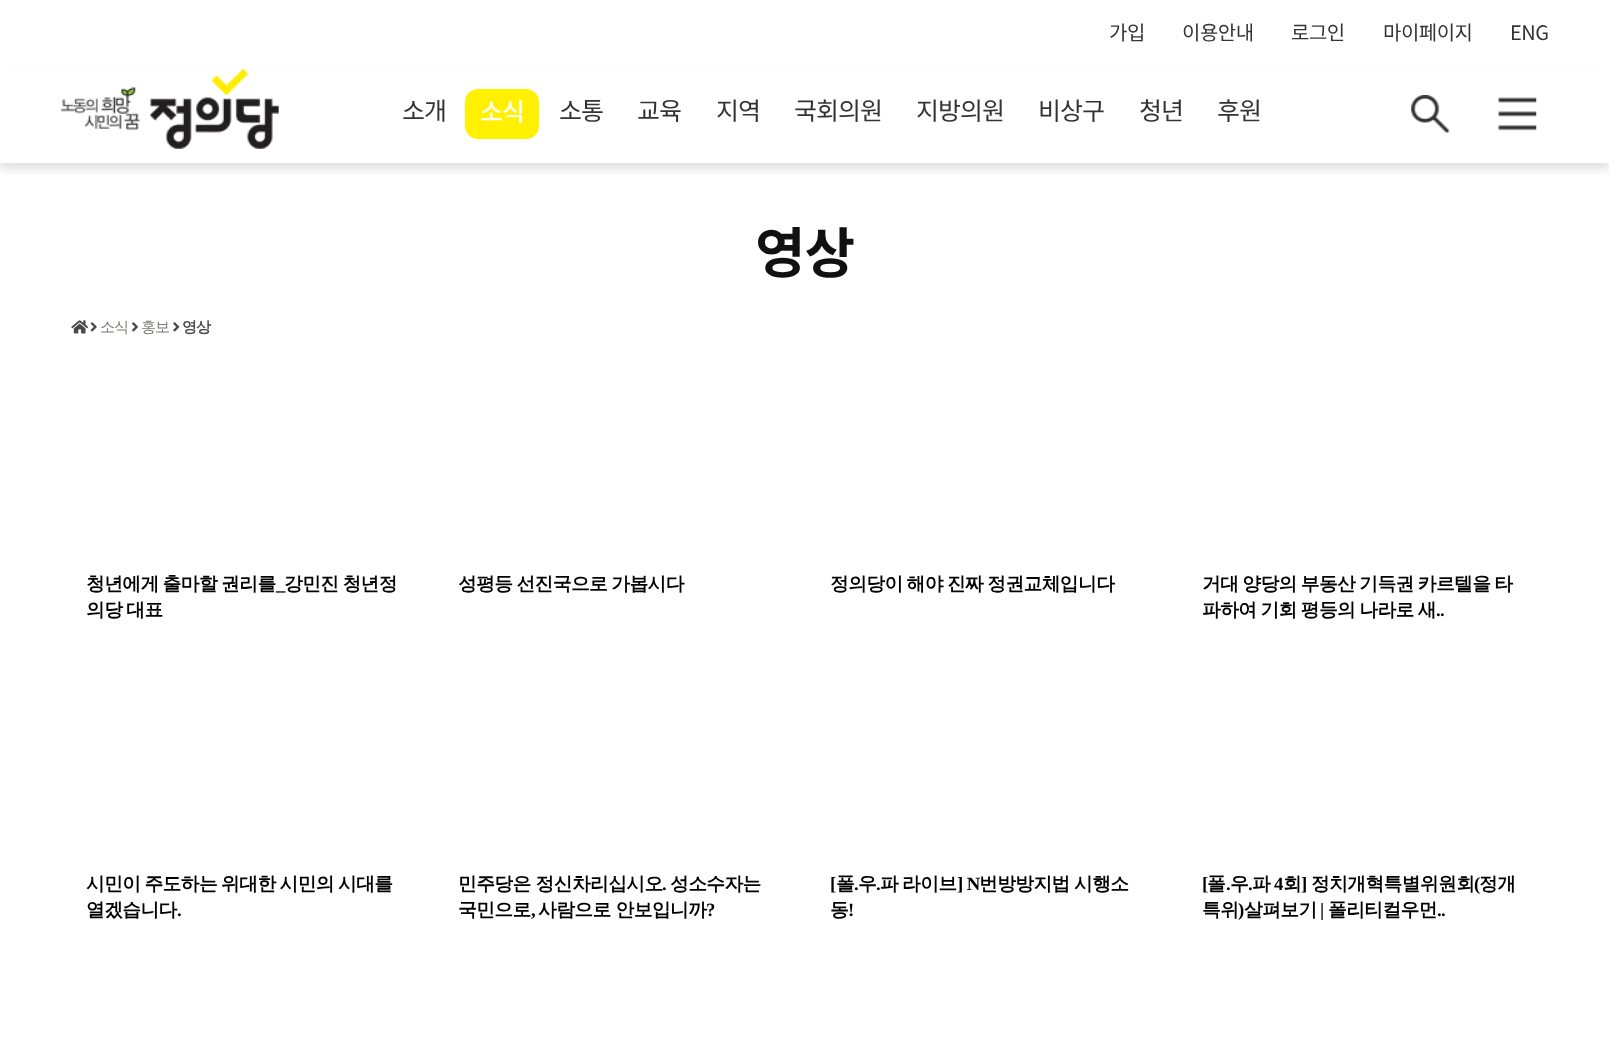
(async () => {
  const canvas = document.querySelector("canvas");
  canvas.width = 1609;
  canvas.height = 1053;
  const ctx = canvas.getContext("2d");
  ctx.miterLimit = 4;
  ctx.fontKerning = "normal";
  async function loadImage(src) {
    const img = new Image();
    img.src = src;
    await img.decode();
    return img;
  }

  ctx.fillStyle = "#ffffff";
  ctx.fillRect(0, 0, 1609, 1053);
  ctx.fillStyle = "rgba(0, 0, 0, 0.12)";
  ctx.filter = "blur(4px)";
  ctx.beginPath();
  ctx.rect(0, 74, 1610, 95);
  ctx.fill();
  ctx.filter = "none";
  ctx.fillStyle = "#ffffff";
  ctx.fillRect(0, 68, 1609, 95);
  ctx.drawImage(await loadImage("img/1.png"), 61, 68, 218, 81);
  ctx.fillStyle = "#fff100";
  ctx.beginPath();
  ctx.roundRect(465, 89, 74, 50, 13);
  ctx.fill();
  ctx.drawImage(await loadImage("img/2.png"), 1411, 95, 39, 38);
  ctx.drawImage(await loadImage("img/3.png"), 1498, 97, 39, 34);
  ctx.drawImage(await loadImage("img/4.png"), 71, 320, 17, 14);
  ctx.drawImage(await loadImage("img/5.png"), 90, 322, 7, 10);
  ctx.drawImage(await loadImage("img/6.png"), 132, 322, 6, 10);
  ctx.drawImage(await loadImage("img/7.png"), 173, 322, 7, 10);
  ctx.letterSpacing = "-0.5px";
  ctx.font = "20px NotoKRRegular";
  ctx.fillStyle = "#333333";
  for (const [text, x, y] of [
    ["가입", 1109, 40],
    ["이용안내", 1182, 40],
    ["로그인", 1291, 40],
    ["마이페이지", 1383, 40],
    ["ENG", 1510, 40],
  ]) {
    ctx.fillText(text, x, y);
  }
  ctx.letterSpacing = "-1px";
  ctx.font = "25px NotoKRRegular";
  ctx.fillText("소개", 402, 120);
  ctx.font = "500 25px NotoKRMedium";
  ctx.fillStyle = "#ffffff";
  ctx.fillText("소식", 480, 121);
  ctx.font = "25px NotoKRRegular";
  ctx.fillStyle = "#333333";
  for (const [text, x, y] of [
    ["소통", 559, 120],
    ["교육", 637, 120],
    ["지역", 716, 120],
    ["국회의원", 794, 120],
    ["지방의원", 916, 120],
    ["비상구", 1038, 120],
    ["청년", 1139, 120],
    ["후원", 1217, 120],
  ]) {
    ctx.fillText(text, x, y);
  }
  ctx.font = "bold 55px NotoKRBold";
  ctx.fillStyle = "#111111";
  ctx.fillText("영상", 755, 273);
  ctx.font = "500 15px WenQuanYi Zen Hei";
  ctx.fillStyle = "#7a7873";
  ctx.fillText("소식", 100, 332);
  ctx.fillText("홍보", 141, 332);
  ctx.font = "bold 15px WenQuanYi Zen Hei";
  ctx.fillStyle = "#494949";
  ctx.fillText("영상", 182, 332);
  ctx.letterSpacing = "-0.6px";
  ctx.wordSpacing = "-1px";
  ctx.font = "bold 18.75px WenQuanYi Zen Hei";
  ctx.fillStyle = "#000000";
  ctx.fillText("청년에게 출마할 권리를", 86, 590);
  ctx.wordSpacing = "0px";
  ctx.font = "bold 18.75px Liberation Serif";
  ctx.fillText("_", 276, 590);
  ctx.wordSpacing = "-1px";
  ctx.font = "bold 18.75px WenQuanYi Zen Hei";
  for (const [text, x, y] of [
    ["강민진 청년정", 284, 590],
    ["의당 대표", 86, 616],
    ["성평등 선진국으로 가봅시다", 458, 590],
    ["정의당이 해야 진짜 정권교체입니다", 830, 590],
    ["거대 양당의 부동산 기득권 카르텔을 타", 1202, 590],
    ["파하여 기회 평등의 나라로 새", 1202, 616],
  ]) {
    ctx.fillText(text, x, y);
  }
  ctx.wordSpacing = "0px";
  ctx.font = "bold 18.75px Liberation Serif";
  ctx.fillText("..", 1436, 616);
  ctx.wordSpacing = "-1px";
  ctx.font = "bold 18.75px WenQuanYi Zen Hei";
  ctx.fillText("시민이 주도하는 위대한 시민의 시대를", 86, 890);
  ctx.wordSpacing = "0px";
  ctx.fillText("열겠습니다", 86, 916);
  ctx.font = "bold 18.75px Liberation Serif";
  ctx.fillText(".", 177, 916);
  ctx.font = "bold 18.75px WenQuanYi Zen Hei";
  ctx.fillText("민주당은 정신차리십시오", 458, 890);
  ctx.font = "bold 18.75px Liberation Serif";
  ctx.fillText(".", 662, 890);
  ctx.font = "bold 18.75px WenQuanYi Zen Hei";
  ctx.fillText("성소수자는", 670, 890);
  ctx.fillText("국민으로", 458, 916);
  ctx.font = "bold 18.75px Liberation Serif";
  ctx.fillText(",", 531, 916);
  ctx.font = "bold 18.75px WenQuanYi Zen Hei";
  ctx.fillText("사람으로 안보입니까", 538, 916);
  ctx.font = "bold 18.75px Liberation Serif";
  ctx.fillText("?", 706, 916);
  ctx.fillText("[", 830, 890);
  ctx.font = "bold 18.75px WenQuanYi Zen Hei";
  ctx.fillText("폴", 836, 890);
  ctx.font = "bold 18.75px Liberation Serif";
  ctx.fillText(".", 854, 890);
  ctx.font = "bold 18.75px WenQuanYi Zen Hei";
  ctx.fillText("우", 858, 890);
  ctx.font = "bold 18.75px Liberation Serif";
  ctx.fillText(".", 876, 890);
  ctx.font = "bold 18.75px WenQuanYi Zen Hei";
  ctx.fillText("파", 880, 890);
  ctx.fillText("라이브", 902, 890);
  ctx.font = "bold 18.75px Liberation Serif";
  ctx.fillText("] N", 957, 890);
  ctx.font = "bold 18.75px WenQuanYi Zen Hei";
  for (const [text, x, y] of [
    ["번방방지법", 979, 890],
    ["시행소", 1074, 890],
    ["동", 830, 916],
  ]) {
    ctx.fillText(text, x, y);
  }
  ctx.font = "bold 18.75px Liberation Serif";
  ctx.fillText("!", 848, 916);
  ctx.fillText("[", 1202, 890);
  ctx.font = "bold 18.75px WenQuanYi Zen Hei";
  ctx.fillText("폴", 1207, 890);
  ctx.font = "bold 18.75px Liberation Serif";
  ctx.fillText(".", 1226, 890);
  ctx.font = "bold 18.75px WenQuanYi Zen Hei";
  ctx.fillText("우", 1230, 890);
  ctx.font = "bold 18.75px Liberation Serif";
  ctx.fillText(".", 1248, 890);
  ctx.font = "bold 18.75px WenQuanYi Zen Hei";
  ctx.fillText("파", 1252, 890);
  ctx.font = "bold 18.75px Liberation Serif";
  ctx.fillText("4", 1274, 890);
  ctx.font = "bold 18.75px WenQuanYi Zen Hei";
  ctx.fillText("회", 1283, 890);
  ctx.font = "bold 18.75px Liberation Serif";
  ctx.fillText("]", 1301, 890);
  ctx.font = "bold 18.75px WenQuanYi Zen Hei";
  ctx.fillText("정치개혁특별위원회", 1311, 890);
  ctx.font = "bold 18.75px Liberation Serif";
  ctx.fillText("(", 1474, 890);
  ctx.font = "bold 18.75px WenQuanYi Zen Hei";
  ctx.fillText("정개", 1479, 890);
  ctx.fillText("특위", 1202, 916);
  ctx.font = "bold 18.75px Liberation Serif";
  ctx.fillText(")", 1238, 916);
  ctx.font = "bold 18.75px WenQuanYi Zen Hei";
  ctx.fillText("살펴보기", 1244, 916);
  ctx.font = "bold 18.75px Liberation Serif";
  ctx.fillText("|", 1320, 916);
  ctx.font = "bold 18.75px WenQuanYi Zen Hei";
  ctx.fillText("폴리티컬우먼", 1328, 916);
  ctx.font = "bold 18.75px Liberation Serif";
  ctx.fillText("..", 1437, 916);
})();
